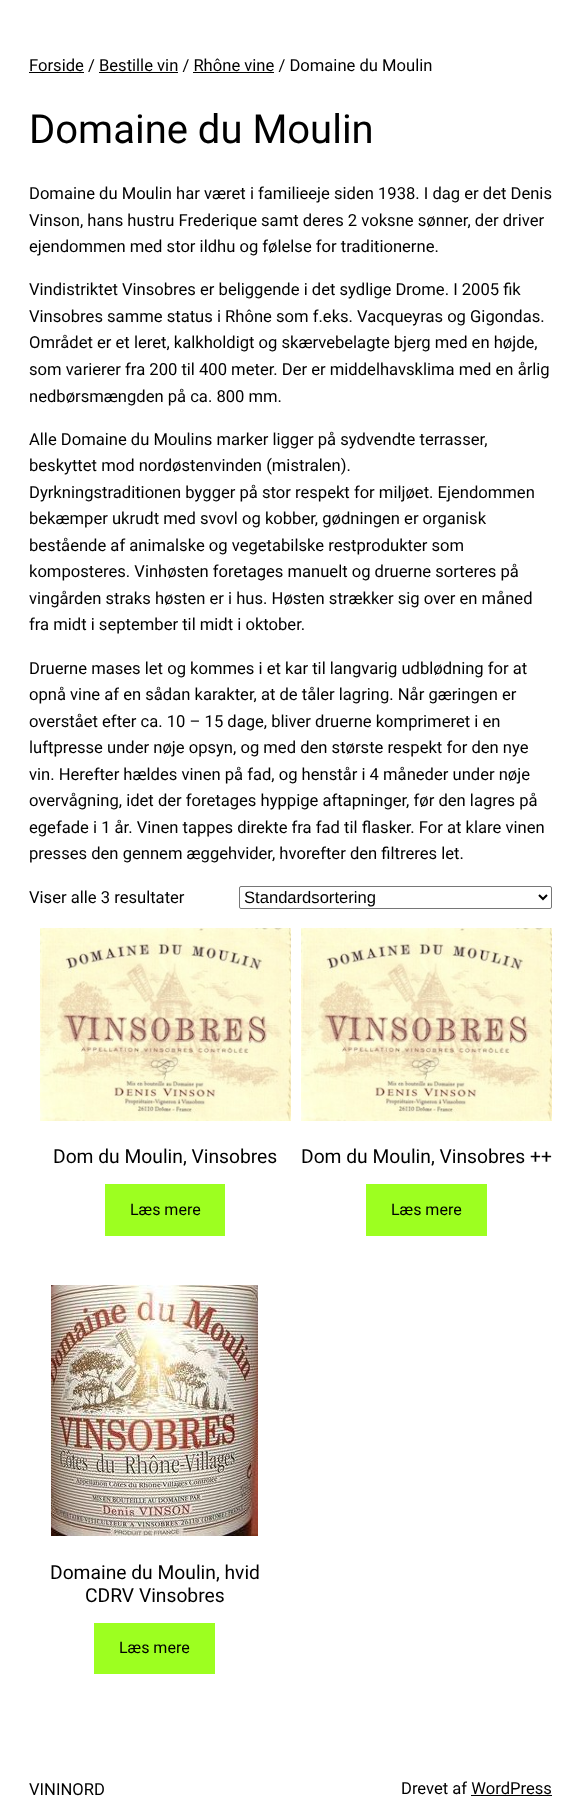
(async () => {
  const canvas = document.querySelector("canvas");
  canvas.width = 581;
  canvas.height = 1806;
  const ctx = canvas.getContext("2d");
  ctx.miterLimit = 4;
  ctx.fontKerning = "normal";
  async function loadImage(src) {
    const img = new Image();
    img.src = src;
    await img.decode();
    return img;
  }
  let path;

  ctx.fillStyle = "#ffffff";
  ctx.fillRect(0, 0, 581, 1806);
  for (const [x, y, w, h, color] of [
    [29, 72, 55, 1, "#000000"],
    [99, 72, 79, 1, "#000000"],
    [193, 72, 81, 1, "#000000"],
  ]) {
    ctx.fillStyle = color;
    ctx.fillRect(x, y, w, h);
  }
  ctx.beginPath();
  ctx.roundRect(239.5, 886.5, 312, 22, 1.5);
  ctx.strokeStyle = "#767676";
  ctx.stroke();
  path = new Path2D("M539 895L543 899L547 895");
  ctx.strokeStyle = "#000000";
  ctx.lineWidth = 2;
  ctx.stroke(path);
  ctx.drawImage(await loadImage("img/1.png"), 40, 928, 251, 193);
  ctx.fillStyle = "#9dff20";
  ctx.fillRect(105, 1184, 120, 52);
  ctx.drawImage(await loadImage("img/1.png"), 301, 928, 251, 193);
  ctx.fillRect(366, 1184, 121, 52);
  ctx.drawImage(await loadImage("img/2.png"), 51, 1285, 207, 251);
  ctx.fillRect(94, 1623, 121, 51);
  ctx.fillStyle = "#000000";
  ctx.fillRect(471, 1795, 81, 1);
  ctx.font = "16.6px Roboto";
  ctx.fillText("Forside / Bestille vin / Rhône vine / Domaine du Moulin", 29, 71);
  ctx.font = "40px Roboto";
  ctx.fillText("Domaine du Moulin", 29, 143);
  ctx.font = "16.6px Roboto";
  for (const [text, x, y] of [
    ["Domaine du Moulin har været i familieeje siden 1938. I dag er det Denis", 29, 199],
    ["Vinson, hans hustru Frederique samt deres 2 voksne sønner, der driver", 29, 226],
    ["ejendommen med stor ildhu og følelse for traditionerne.", 29, 252],
    ["Vindistriktet Vinsobres er beliggende i det sydlige Drome. I 2005 fik", 29, 295],
    ["Vinsobres samme status i Rhône som f.eks. Vacqueyras og Gigondas.", 29, 322],
    ["Området er et leret, kalkholdigt og skærvebelagte bjerg med en højde,", 29, 348],
    ["som varierer fra 200 til 400 meter. Der er middelhavsklima med en årlig", 29, 375],
    ["nedbørsmængden på ca. 800 mm.", 29, 402],
    ["Alle Domaine du Moulins marker ligger på sydvendte terrasser,", 29, 445],
    ["beskyttet mod nordøstenvinden (mistralen).", 29, 471],
    ["Dyrkningstraditionen bygger på stor respekt for miljøet. Ejendommen", 29, 498],
    ["bekæmper ukrudt med svovl og kobber, gødningen er organisk", 29, 524],
    ["bestående af animalske og vegetabilske restprodukter som", 29, 551],
    ["komposteres. Vinhøsten foretages manuelt og druerne sorteres på", 29, 577],
    ["vingården straks høsten er i hus. Høsten strækker sig over en måned", 29, 604],
    ["fra midt i september til midt i oktober.", 29, 630],
    ["Druerne mases let og kommes i et kar til langvarig udblødning for at", 29, 674],
    ["opnå vine af en sådan karakter, at de tåler lagring. Når gæringen er", 29, 700],
    ["overstået efter ca. 10 – 15 dage, bliver druerne komprimeret i en", 29, 727],
    ["luftpresse under nøje opsyn, og med den største respekt for den nye", 29, 753],
    ["vin. Herefter hældes vinen på fad, og henstår i 4 måneder under nøje", 29, 780],
    ["overvågning, idet der foretages hyppige aftapninger, før den lagres på", 29, 806],
    ["egefade i 1 år. Vinen tappes direkte fra fad til flasker. For at klare vinen", 29, 833],
    ["presses den gennem æggehvider, hvorefter den filtreres let.", 29, 859],
    ["Viser alle 3 resultater", 29, 903],
  ]) {
    ctx.fillText(text, x, y);
  }
  ctx.font = "16.6px Liberation Sans";
  ctx.fillText("Standardsortering", 244, 903);
  ctx.font = "19.25px Roboto";
  ctx.fillText("Dom du Moulin, Vinsobres", 53, 1163);
  ctx.font = "16px Roboto";
  ctx.fillText("Læs mere", 130, 1215);
  ctx.font = "19.25px Roboto";
  ctx.fillText("Dom du Moulin, Vinsobres ++", 301, 1163);
  ctx.font = "16px Roboto";
  ctx.fillText("Læs mere", 391, 1215);
  ctx.font = "19.25px Roboto";
  ctx.fillText("Domaine du Moulin, hvid", 50, 1579);
  ctx.fillText("CDRV Vinsobres", 85, 1602);
  ctx.font = "16px Roboto";
  ctx.fillText("Læs mere", 119, 1653);
  ctx.font = "16.6px Roboto";
  ctx.fillText("VININORD", 29, 1795);
  ctx.fillText("Drevet af WordPress", 401, 1794);
})();
